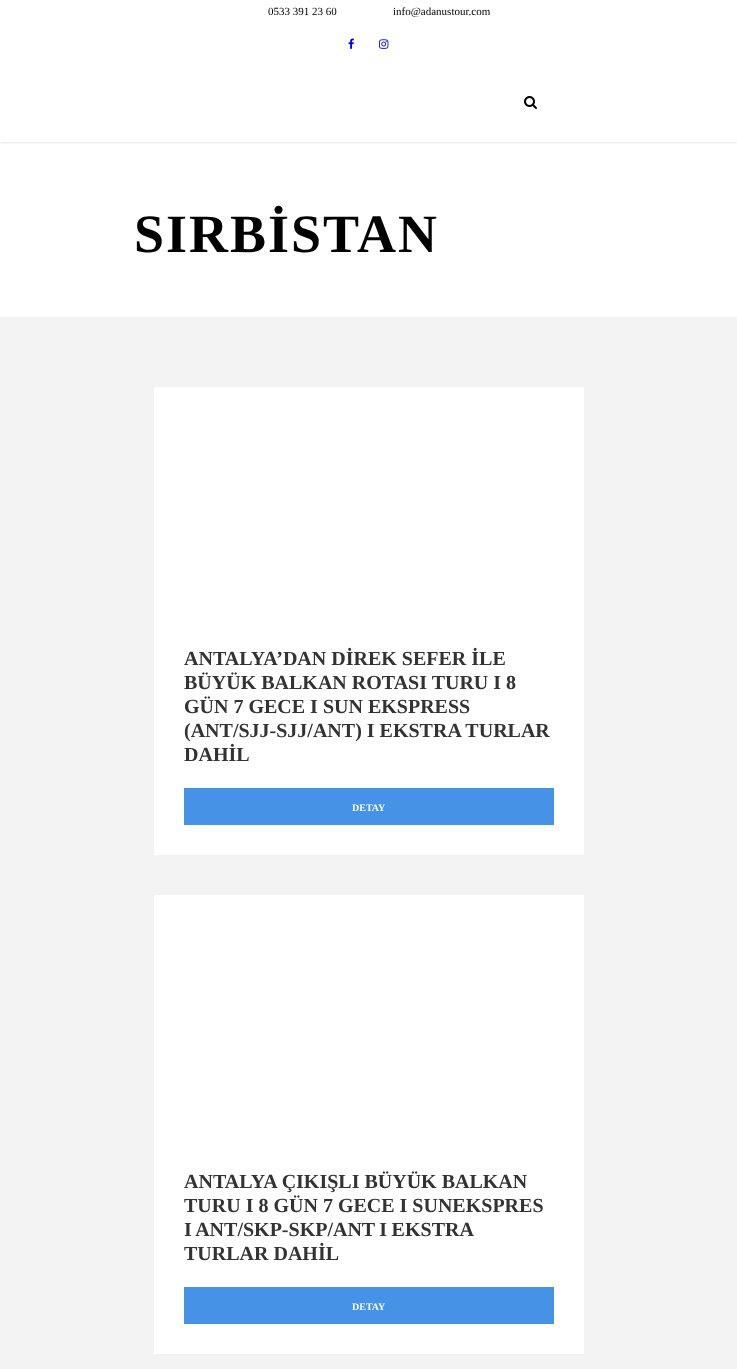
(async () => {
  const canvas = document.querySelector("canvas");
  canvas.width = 737;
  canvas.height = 1369;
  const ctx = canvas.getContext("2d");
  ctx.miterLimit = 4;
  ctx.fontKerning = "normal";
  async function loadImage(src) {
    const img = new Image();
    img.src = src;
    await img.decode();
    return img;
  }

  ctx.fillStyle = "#ffffff";
  ctx.fillRect(0, 0, 737, 1369);
  ctx.drawImage(await loadImage("img/1.png"), 348, 38, 6, 11);
  ctx.drawImage(await loadImage("img/2.png"), 379, 39, 10, 10);
  ctx.save();
  ctx.beginPath();
  ctx.rect(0, 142, 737, 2);
  ctx.clip();
  ctx.fillStyle = "rgba(0, 0, 0, 0.1)";
  ctx.filter = "blur(1px)";
  ctx.beginPath();
  ctx.rect(0, 68, 737, 75);
  ctx.fill();
  ctx.filter = "none";
  ctx.restore();
  ctx.drawImage(await loadImage("img/3.png"), 524, 96, 13, 13);
  for (const [x, y, w, h, color] of [
    [0, 317, 737, 1052, "#f3f3f3"],
    [154, 387, 430, 468, "#ffffff"],
    [184, 788, 370, 37, "#4692e7"],
    [154, 895, 430, 459, "#ffffff"],
    [184, 1287, 370, 37, "#4692e7"],
  ]) {
    ctx.fillStyle = color;
    ctx.fillRect(x, y, w, h);
  }
  ctx.font = "11px Liberation Serif";
  ctx.fillStyle = "#000000";
  ctx.fillText("0533 391 23 60", 268, 15);
  ctx.fillText("info@adanustour.com", 393, 15);
  ctx.letterSpacing = "2px";
  ctx.font = "bold 54px Liberation Serif";
  ctx.fillText("SIRBİSTAN", 134, 252);
  ctx.letterSpacing = "0px";
  ctx.font = "bold 20px Liberation Serif";
  ctx.fillStyle = "#333333";
  for (const [text, x, y] of [
    ["ANTALYA’DAN DİREK SEFER İLE", 184, 665],
    ["BÜYÜK BALKAN ROTASI TURU I 8", 184, 689],
    ["GÜN 7 GECE I SUN EKSPRESS", 184, 713],
    ["(ANT/SJJ-SJJ/ANT) I EKSTRA TURLAR", 184, 737],
    ["DAHİL", 184, 761],
  ]) {
    ctx.fillText(text, x, y);
  }
  ctx.font = "bold 10px Liberation Serif";
  ctx.fillStyle = "#ffffff";
  ctx.fillText("DETAY", 352, 811);
  ctx.font = "bold 20px Liberation Serif";
  ctx.fillStyle = "#333333";
  ctx.fillText("ANTALYA ÇIKIŞLI BÜYÜK BALKAN", 184, 1188);
  ctx.fillText("TURU I 8 GÜN 7 GECE I SUNEKSPRES", 184, 1212);
  ctx.wordSpacing = "-0.5px";
  ctx.fillText("I ANT/SKP-SKP/ANT I EKSTRA", 184, 1236);
  ctx.wordSpacing = "0px";
  ctx.fillText("TURLAR DAHİL", 184, 1260);
  ctx.font = "bold 10px Liberation Serif";
  ctx.fillStyle = "#ffffff";
  ctx.fillText("DETAY", 352, 1310);
})();
